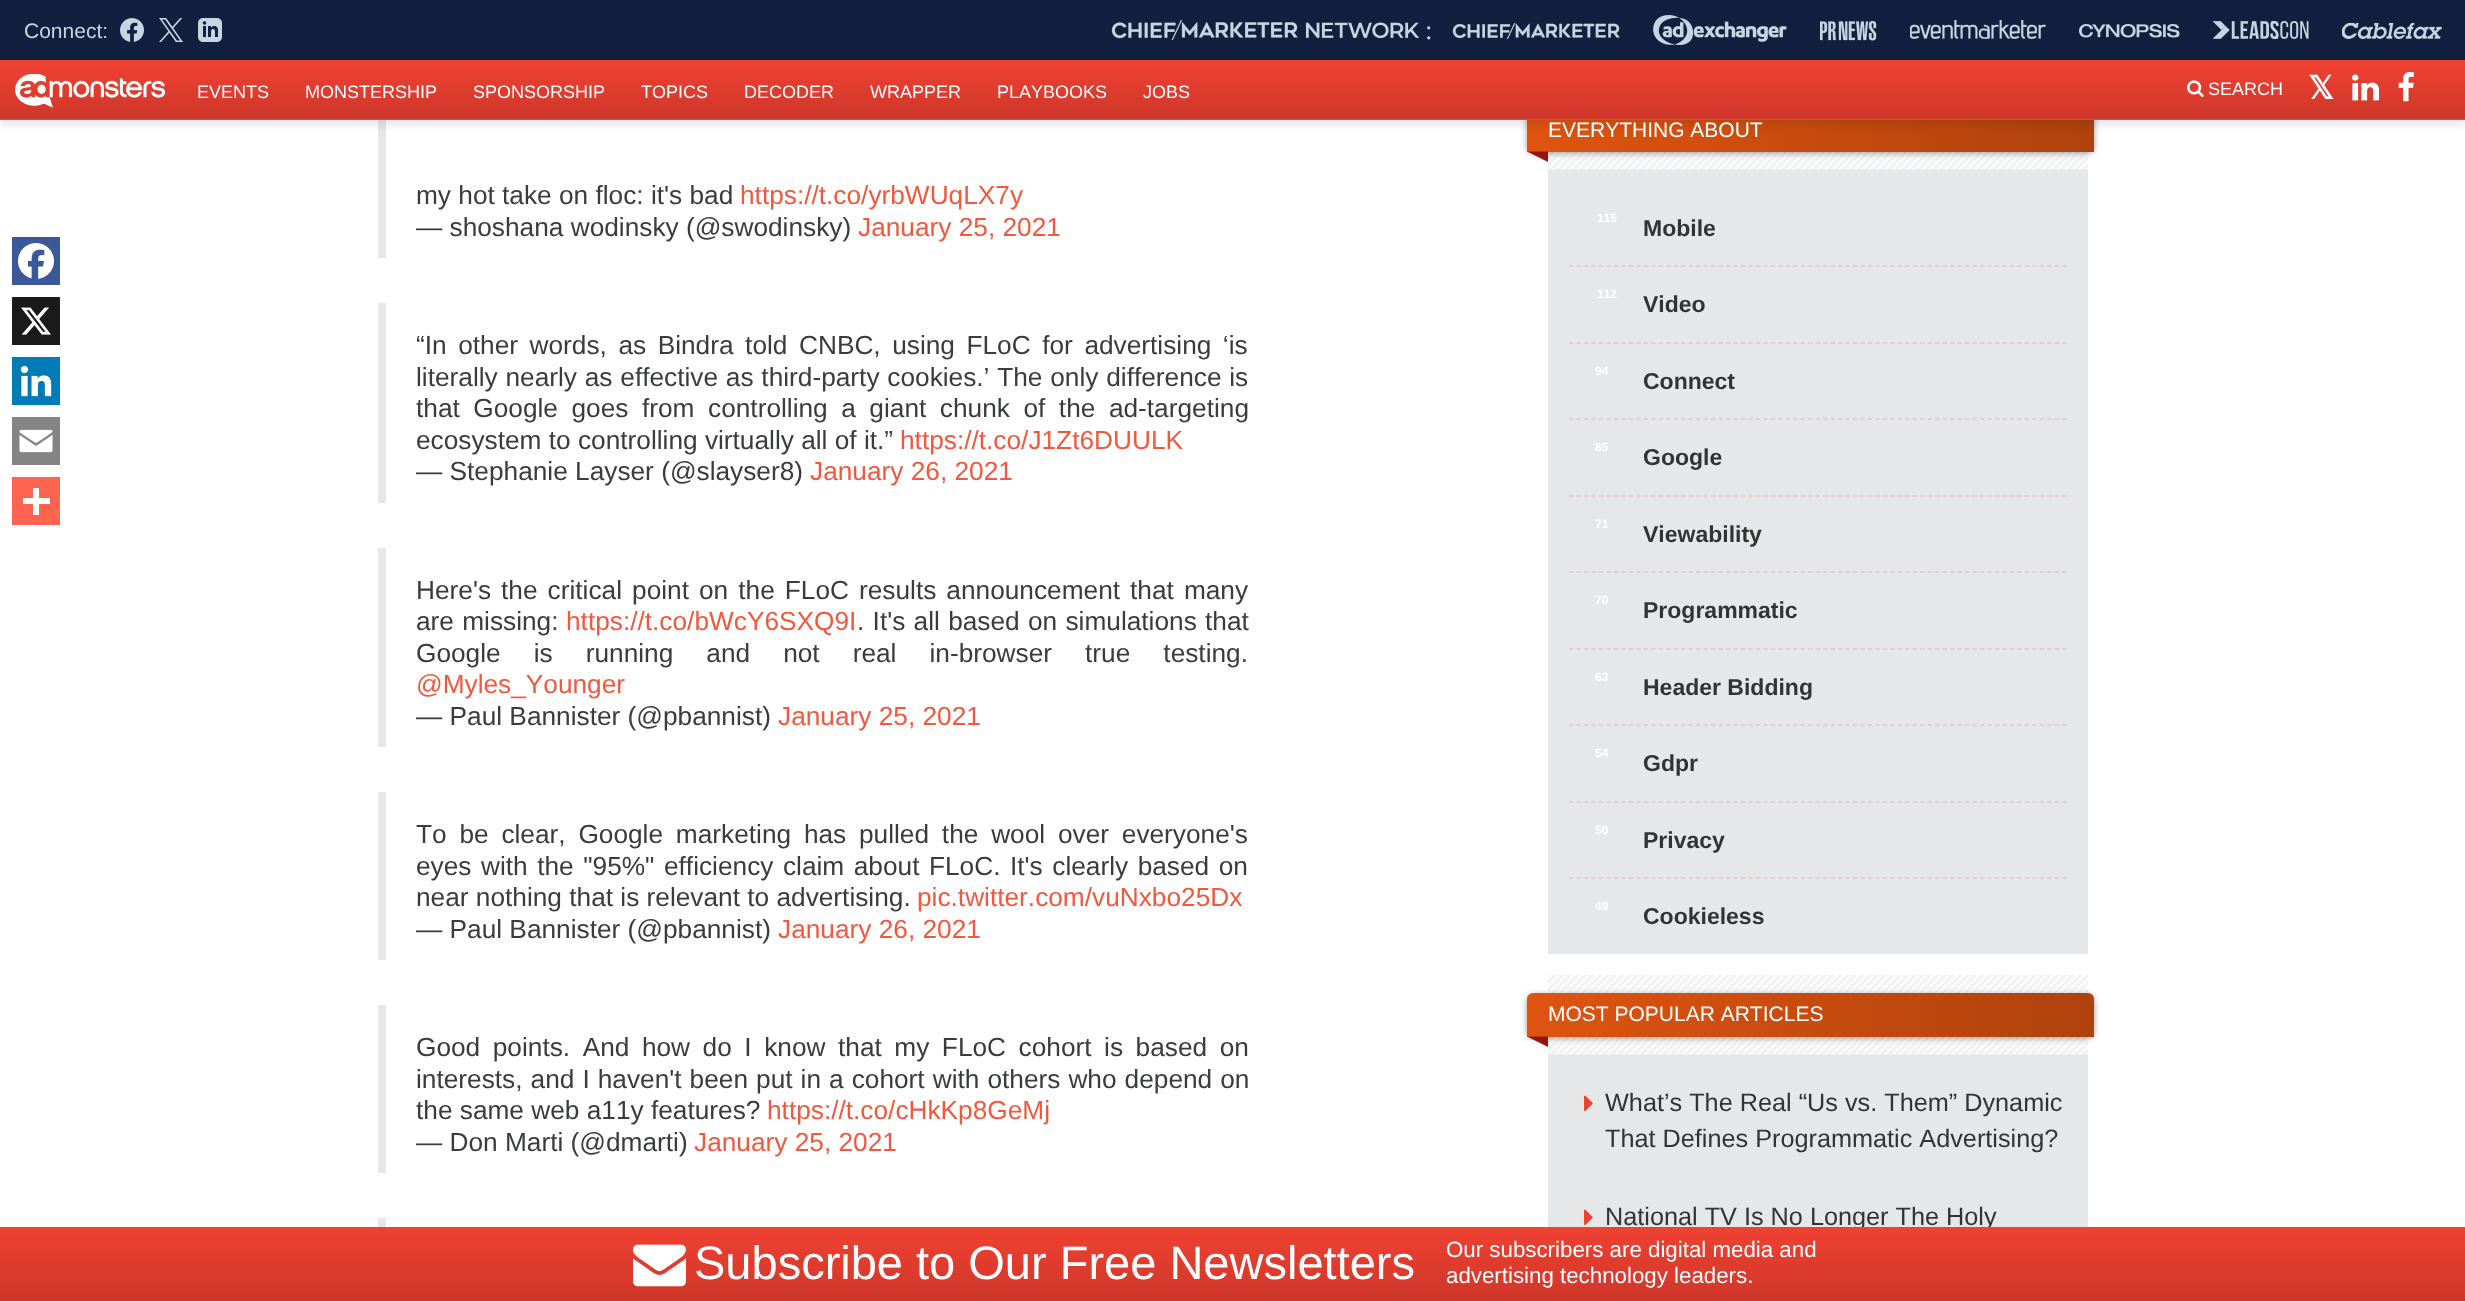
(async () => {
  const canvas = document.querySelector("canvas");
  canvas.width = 2465;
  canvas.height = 1301;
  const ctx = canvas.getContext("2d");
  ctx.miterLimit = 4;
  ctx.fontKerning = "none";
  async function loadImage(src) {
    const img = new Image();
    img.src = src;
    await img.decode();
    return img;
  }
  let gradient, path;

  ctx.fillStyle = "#ffffff";
  ctx.fillRect(0, 0, 2465, 1301);
  ctx.fillStyle = "#131f3e";
  ctx.fillRect(0, 0, 2465, 60);
  ctx.drawImage(await loadImage("img/1.png"), 120, 18, 24, 24);
  ctx.drawImage(await loadImage("img/2.png"), 159, 18, 24, 24);
  ctx.drawImage(await loadImage("img/3.png"), 198, 18, 24, 24);
  ctx.drawImage(await loadImage("img/4.png"), 1111, 19, 308, 22);
  ctx.drawImage(await loadImage("img/5.png"), 1452, 23, 168, 16);
  ctx.drawImage(await loadImage("img/6.png"), 1653, 15, 134, 30);
  ctx.drawImage(await loadImage("img/7.png"), 1820, 21, 57, 20);
  ctx.drawImage(await loadImage("img/8.png"), 1910, 20, 136, 19);
  ctx.drawImage(await loadImage("img/9.png"), 2079, 24, 101, 14);
  ctx.drawImage(await loadImage("img/10.png"), 2213, 21, 96, 18);
  ctx.drawImage(await loadImage("img/11.png"), 2342, 23, 100, 16);
  ctx.fillStyle = "#3b5998";
  ctx.fillRect(12, 237, 48, 48);
  ctx.drawImage(await loadImage("img/12.png"), 18, 243, 36, 36);
  ctx.fillStyle = "#1a1a1a";
  ctx.fillRect(12, 297, 48, 48);
  ctx.drawImage(await loadImage("img/13.png"), 21, 307, 30, 28);
  ctx.fillStyle = "#007bb5";
  ctx.fillRect(12, 357, 48, 48);
  ctx.drawImage(await loadImage("img/14.png"), 20, 365, 32, 32);
  ctx.fillStyle = "#848484";
  ctx.fillRect(12, 417, 48, 48);
  ctx.drawImage(await loadImage("img/15.png"), 19, 429, 34, 24);
  for (const [x, y, w, h, color] of [
    [12, 477, 48, 48, "#ff6450"],
    [33, 488, 6, 27, "#ffffff"],
    [23, 498, 27, 6, "#ffffff"],
    [378, 120, 8, 138, "#e6e7e8"],
    [1548, 152, 540, 802, "#e6e7e8"],
  ]) {
    ctx.fillStyle = color;
    ctx.fillRect(x, y, w, h);
  }
  ctx.drawImage(await loadImage("img/20.png"), 1548, 152, 540, 18);
  ctx.fillStyle = "rgba(0, 0, 0, 0.4)";
  ctx.filter = "blur(3px)";
  ctx.beginPath();
  ctx.roundRect(1527, 110, 567, 43, 6);
  ctx.fill();
  ctx.filter = "none";
  gradient = ctx.createLinearGradient(1527, 130, 2094, 130);
  gradient.addColorStop(0, "#df5410");
  gradient.addColorStop(1, "#af420d");
  ctx.fillStyle = gradient;
  ctx.fillRect(1527, 120, 567, 32);
  ctx.fillStyle = "rgba(0, 0, 0, 0.1)";
  ctx.filter = "blur(4px)";
  ctx.beginPath();
  ctx.rect(0, 65, 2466, 60);
  ctx.fill();
  ctx.filter = "none";
  ctx.fillStyle = "#f04132";
  ctx.fillRect(0, 60, 2465, 60);
  gradient = ctx.createLinearGradient(1233, 61, 1233, 119);
  gradient.addColorStop(0, "#f04132");
  gradient.addColorStop(1, "#ce372a");
  ctx.fillStyle = gradient;
  ctx.fillRect(0, 65, 2465, 54);
  ctx.drawImage(await loadImage("img/16.png"), 15, 74, 150, 34);
  ctx.drawImage(await loadImage("img/17.png"), 2187, 80, 17, 18);
  ctx.drawImage(await loadImage("img/18.png"), 2352, 74, 27, 27);
  ctx.drawImage(await loadImage("img/19.png"), 2398, 72, 16, 30);
  for (const [x, y, w, h, color] of [
    [378, 303, 8, 200, "#e6e7e8"],
    [378, 548, 8, 199, "#e6e7e8"],
    [378, 792, 8, 168, "#e6e7e8"],
    [378, 1005, 8, 168, "#e6e7e8"],
    [378, 1218, 8, 9, "#e6e7e8"],
  ]) {
    ctx.fillStyle = color;
    ctx.fillRect(x, y, w, h);
  }
  ctx.fillStyle = "#97160b";
  path = new Path2D("M1527 151.5H1548V162Z");
  ctx.fill(path);
  path = new Path2D("M1569 266H2067");
  ctx.strokeStyle = "#e8c6c4";
  ctx.lineWidth = 1.5;
  ctx.setLineDash([4.5, 2.97]);
  ctx.stroke(path);
  path = new Path2D("M1569 343H2067");
  ctx.stroke(path);
  path = new Path2D("M1569 419H2067");
  ctx.stroke(path);
  path = new Path2D("M1569 496H2067");
  ctx.stroke(path);
  path = new Path2D("M1569 572H2067");
  ctx.stroke(path);
  path = new Path2D("M1569 649H2067");
  ctx.stroke(path);
  path = new Path2D("M1569 725H2067");
  ctx.stroke(path);
  path = new Path2D("M1569 802H2067");
  ctx.stroke(path);
  path = new Path2D("M1569 878H2067");
  ctx.stroke(path);
  ctx.fillStyle = "#e6e7e8";
  ctx.fillRect(1548, 975, 540, 252);
  ctx.drawImage(await loadImage("img/21.png"), 1548, 975, 540, 80);
  ctx.fillStyle = "rgba(0, 0, 0, 0.4)";
  ctx.filter = "blur(3px)";
  ctx.beginPath();
  ctx.roundRect(1527, 995, 567, 43, 6);
  ctx.fill();
  ctx.filter = "none";
  gradient = ctx.createLinearGradient(1527, 1015, 2094, 1015);
  gradient.addColorStop(0, "#df5410");
  gradient.addColorStop(1, "#af420d");
  ctx.fillStyle = gradient;
  ctx.beginPath();
  ctx.roundRect(1527, 993, 567, 44, [6, 6, 0, 0]);
  ctx.fill();
  ctx.fillStyle = "#97160b";
  path = new Path2D("M1527 1036.5H1548V1047Z");
  ctx.fill(path);
  ctx.drawImage(await loadImage("img/22.png"), 1584, 1095, 9, 16);
  ctx.drawImage(await loadImage("img/22.png"), 1584, 1209, 9, 16);
  ctx.font = "21px Liberation Sans";
  ctx.fillStyle = "#c2d7e2";
  ctx.fillText("Connect:", 24, 38);
  ctx.font = "27px Liberation Serif";
  ctx.fillText(":", 1425, 39);
  ctx.font = "18px Liberation Sans";
  ctx.fillStyle = "#ffffff";
  for (const [text, x, y] of [
    ["EVENTS", 197, 98],
    ["MONSTERSHIP", 305, 98],
    ["SPONSORSHIP", 473, 98],
    ["TOPICS", 641, 98],
    ["DECODER", 744, 98],
    ["WRAPPER", 870, 98],
    ["PLAYBOOKS", 997, 98],
    ["JOBS", 1143, 98],
    ["SEARCH", 2208, 95],
  ]) {
    ctx.fillText(text, x, y);
  }
  ctx.font = "bold 32px DejaVu Sans";
  ctx.fillText("𝕏", 2308, 99);
  ctx.font = "26.25px Liberation Sans";
  ctx.fillStyle = "#3a3b3c";
  ctx.fillText("my hot take on floc: it's bad", 416, 204);
  ctx.fillStyle = "#f1583e";
  ctx.fillText("https://t.co/yrbWUqLX7y", 740, 204);
  ctx.fillStyle = "#3a3b3c";
  ctx.fillText("— shoshana wodinsky (@swodinsky)", 416, 236);
  ctx.fillStyle = "#f1583e";
  ctx.fillText("January 25, 2021", 858, 236);
  ctx.wordSpacing = "4.25px";
  ctx.fillStyle = "#3a3b3c";
  ctx.fillText("“In other words, as Bindra told CNBC, using FLoC for advertising ‘is", 416, 354);
  ctx.wordSpacing = "0.5px";
  ctx.fillText("literally nearly as effective as third-party cookies.’ The only difference is", 416, 386);
  ctx.wordSpacing = "6.25px";
  ctx.fillText("that Google goes from controlling a giant chunk of the ad-targeting", 416, 417);
  ctx.wordSpacing = "0px";
  ctx.fillText("ecosystem to controlling virtually all of it.”", 416, 449);
  ctx.fillStyle = "#f1583e";
  ctx.fillText("https://t.co/J1Zt6DUULK", 900, 449);
  ctx.fillStyle = "#3a3b3c";
  ctx.fillText("— Stephanie Layser (@slayser8)", 416, 480);
  ctx.fillStyle = "#f1583e";
  ctx.fillText("January 26, 2021", 810, 480);
  ctx.wordSpacing = "2.75px";
  ctx.fillStyle = "#3a3b3c";
  ctx.fillText("Here's the critical point on the FLoC results announcement that many", 416, 599);
  ctx.wordSpacing = "1px";
  ctx.fillText("are missing:", 416, 630);
  ctx.wordSpacing = "0px";
  ctx.fillStyle = "#f1583e";
  ctx.fillText("https://t.co/bWcY6SXQ9I", 566, 630);
  ctx.wordSpacing = "1px";
  ctx.fillStyle = "#3a3b3c";
  ctx.fillText(". It's all based on simulations that", 857, 630);
  ctx.wordSpacing = "25.75px";
  ctx.fillText("Google is running and not real in-browser true testing.", 416, 662);
  ctx.wordSpacing = "0px";
  ctx.fillStyle = "#f1583e";
  ctx.fillText("@Myles_Younger", 416, 693);
  ctx.fillStyle = "#3a3b3c";
  ctx.fillText("— Paul Bannister (@pbannist)", 416, 725);
  ctx.fillStyle = "#f1583e";
  ctx.fillText("January 25, 2021", 778, 725);
  ctx.wordSpacing = "5.5px";
  ctx.fillStyle = "#3a3b3c";
  ctx.fillText("To be clear, Google marketing has pulled the wool over everyone's", 416, 843);
  ctx.wordSpacing = "2.25px";
  ctx.fillText("eyes with the \"95%\" efficiency claim about FLoC. It's clearly based on", 416, 875);
  ctx.wordSpacing = "0px";
  ctx.fillText("near nothing that is relevant to advertising.", 416, 906);
  ctx.fillStyle = "#f1583e";
  ctx.fillText("pic.twitter.com/vuNxbo25Dx", 917, 906);
  ctx.fillStyle = "#3a3b3c";
  ctx.fillText("— Paul Bannister (@pbannist)", 416, 938);
  ctx.fillStyle = "#f1583e";
  ctx.fillText("January 26, 2021", 778, 938);
  ctx.wordSpacing = "5.25px";
  ctx.fillStyle = "#3a3b3c";
  ctx.fillText("Good points. And how do I know that my FLoC cohort is based on", 416, 1056);
  ctx.wordSpacing = "0.75px";
  ctx.fillText("interests, and I haven't been put in a cohort with others who depend on", 416, 1088);
  ctx.wordSpacing = "0px";
  ctx.fillText("the same web a11y features?", 416, 1119);
  ctx.fillStyle = "#f1583e";
  ctx.fillText("https://t.co/cHkKp8GeMj", 767, 1119);
  ctx.fillStyle = "#3a3b3c";
  ctx.fillText("— Don Marti (@dmarti)", 416, 1151);
  ctx.fillStyle = "#f1583e";
  ctx.fillText("January 25, 2021", 694, 1151);
  ctx.font = "21px Liberation Sans";
  ctx.fillStyle = "#ffffff";
  ctx.fillText("EVERYTHING ABOUT", 1548, 137);
  ctx.font = "bold 12px Liberation Sans";
  ctx.fillText("115", 1597, 222);
  ctx.font = "bold 23px Liberation Sans";
  ctx.fillStyle = "#333333";
  ctx.fillText("Mobile", 1643, 236);
  ctx.font = "bold 12px Liberation Sans";
  ctx.fillStyle = "#ffffff";
  ctx.fillText("112", 1597, 298);
  ctx.font = "bold 23px Liberation Sans";
  ctx.fillStyle = "#333333";
  ctx.fillText("Video", 1643, 312);
  ctx.font = "bold 12px Liberation Sans";
  ctx.fillStyle = "#ffffff";
  ctx.fillText("94", 1595, 375);
  ctx.font = "bold 23px Liberation Sans";
  ctx.fillStyle = "#333333";
  ctx.fillText("Connect", 1643, 389);
  ctx.font = "bold 12px Liberation Sans";
  ctx.fillStyle = "#ffffff";
  ctx.fillText("85", 1595, 451);
  ctx.font = "bold 23px Liberation Sans";
  ctx.fillStyle = "#333333";
  ctx.fillText("Google", 1643, 465);
  ctx.font = "bold 12px Liberation Sans";
  ctx.fillStyle = "#ffffff";
  ctx.fillText("71", 1595, 528);
  ctx.font = "bold 23px Liberation Sans";
  ctx.fillStyle = "#333333";
  ctx.fillText("Viewability", 1643, 542);
  ctx.font = "bold 12px Liberation Sans";
  ctx.fillStyle = "#ffffff";
  ctx.fillText("70", 1595, 604);
  ctx.font = "bold 23px Liberation Sans";
  ctx.fillStyle = "#333333";
  ctx.fillText("Programmatic", 1643, 618);
  ctx.font = "bold 12px Liberation Sans";
  ctx.fillStyle = "#ffffff";
  ctx.fillText("63", 1595, 681);
  ctx.font = "bold 23px Liberation Sans";
  ctx.fillStyle = "#333333";
  ctx.fillText("Header Bidding", 1643, 695);
  ctx.font = "bold 12px Liberation Sans";
  ctx.fillStyle = "#ffffff";
  ctx.fillText("54", 1595, 757);
  ctx.font = "bold 23px Liberation Sans";
  ctx.fillStyle = "#333333";
  ctx.fillText("Gdpr", 1643, 771);
  ctx.font = "bold 12px Liberation Sans";
  ctx.fillStyle = "#ffffff";
  ctx.fillText("50", 1595, 834);
  ctx.font = "bold 23px Liberation Sans";
  ctx.fillStyle = "#333333";
  ctx.fillText("Privacy", 1643, 848);
  ctx.font = "bold 12px Liberation Sans";
  ctx.fillStyle = "#ffffff";
  ctx.fillText("49", 1595, 910);
  ctx.font = "bold 23px Liberation Sans";
  ctx.fillStyle = "#333333";
  ctx.fillText("Cookieless", 1643, 924);
  ctx.font = "21px Liberation Sans";
  ctx.fillStyle = "#ffffff";
  ctx.fillText("MOST POPULAR ARTICLES", 1548, 1021);
  ctx.font = "25.25px Liberation Sans";
  ctx.fillStyle = "#333333";
  for (const [text, x, y] of [
    ["What’s The Real “Us vs. Them” Dynamic", 1605, 1111],
    ["That Defines Programmatic Advertising?", 1605, 1147],
    ["National TV Is No Longer The Holy", 1605, 1225],
  ]) {
    ctx.fillText(text, x, y);
  }
  gradient = ctx.createLinearGradient(1233, 1227, 1233, 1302);
  gradient.addColorStop(0, "#f04132");
  gradient.addColorStop(1, "#ce372a");
  ctx.fillStyle = gradient;
  ctx.fillRect(0, 1227, 2465, 74);
  ctx.drawImage(await loadImage("img/23.png"), 633, 1244, 53, 43);
  ctx.font = "47px Liberation Sans";
  ctx.fillStyle = "#ffffff";
  ctx.fillText("Subscribe to Our Free Newsletters", 694, 1279);
  ctx.font = "22.3px Liberation Sans";
  ctx.fillText("Our subscribers are digital media and", 1446, 1257);
  ctx.fillText("advertising technology leaders.", 1446, 1283);
})();
